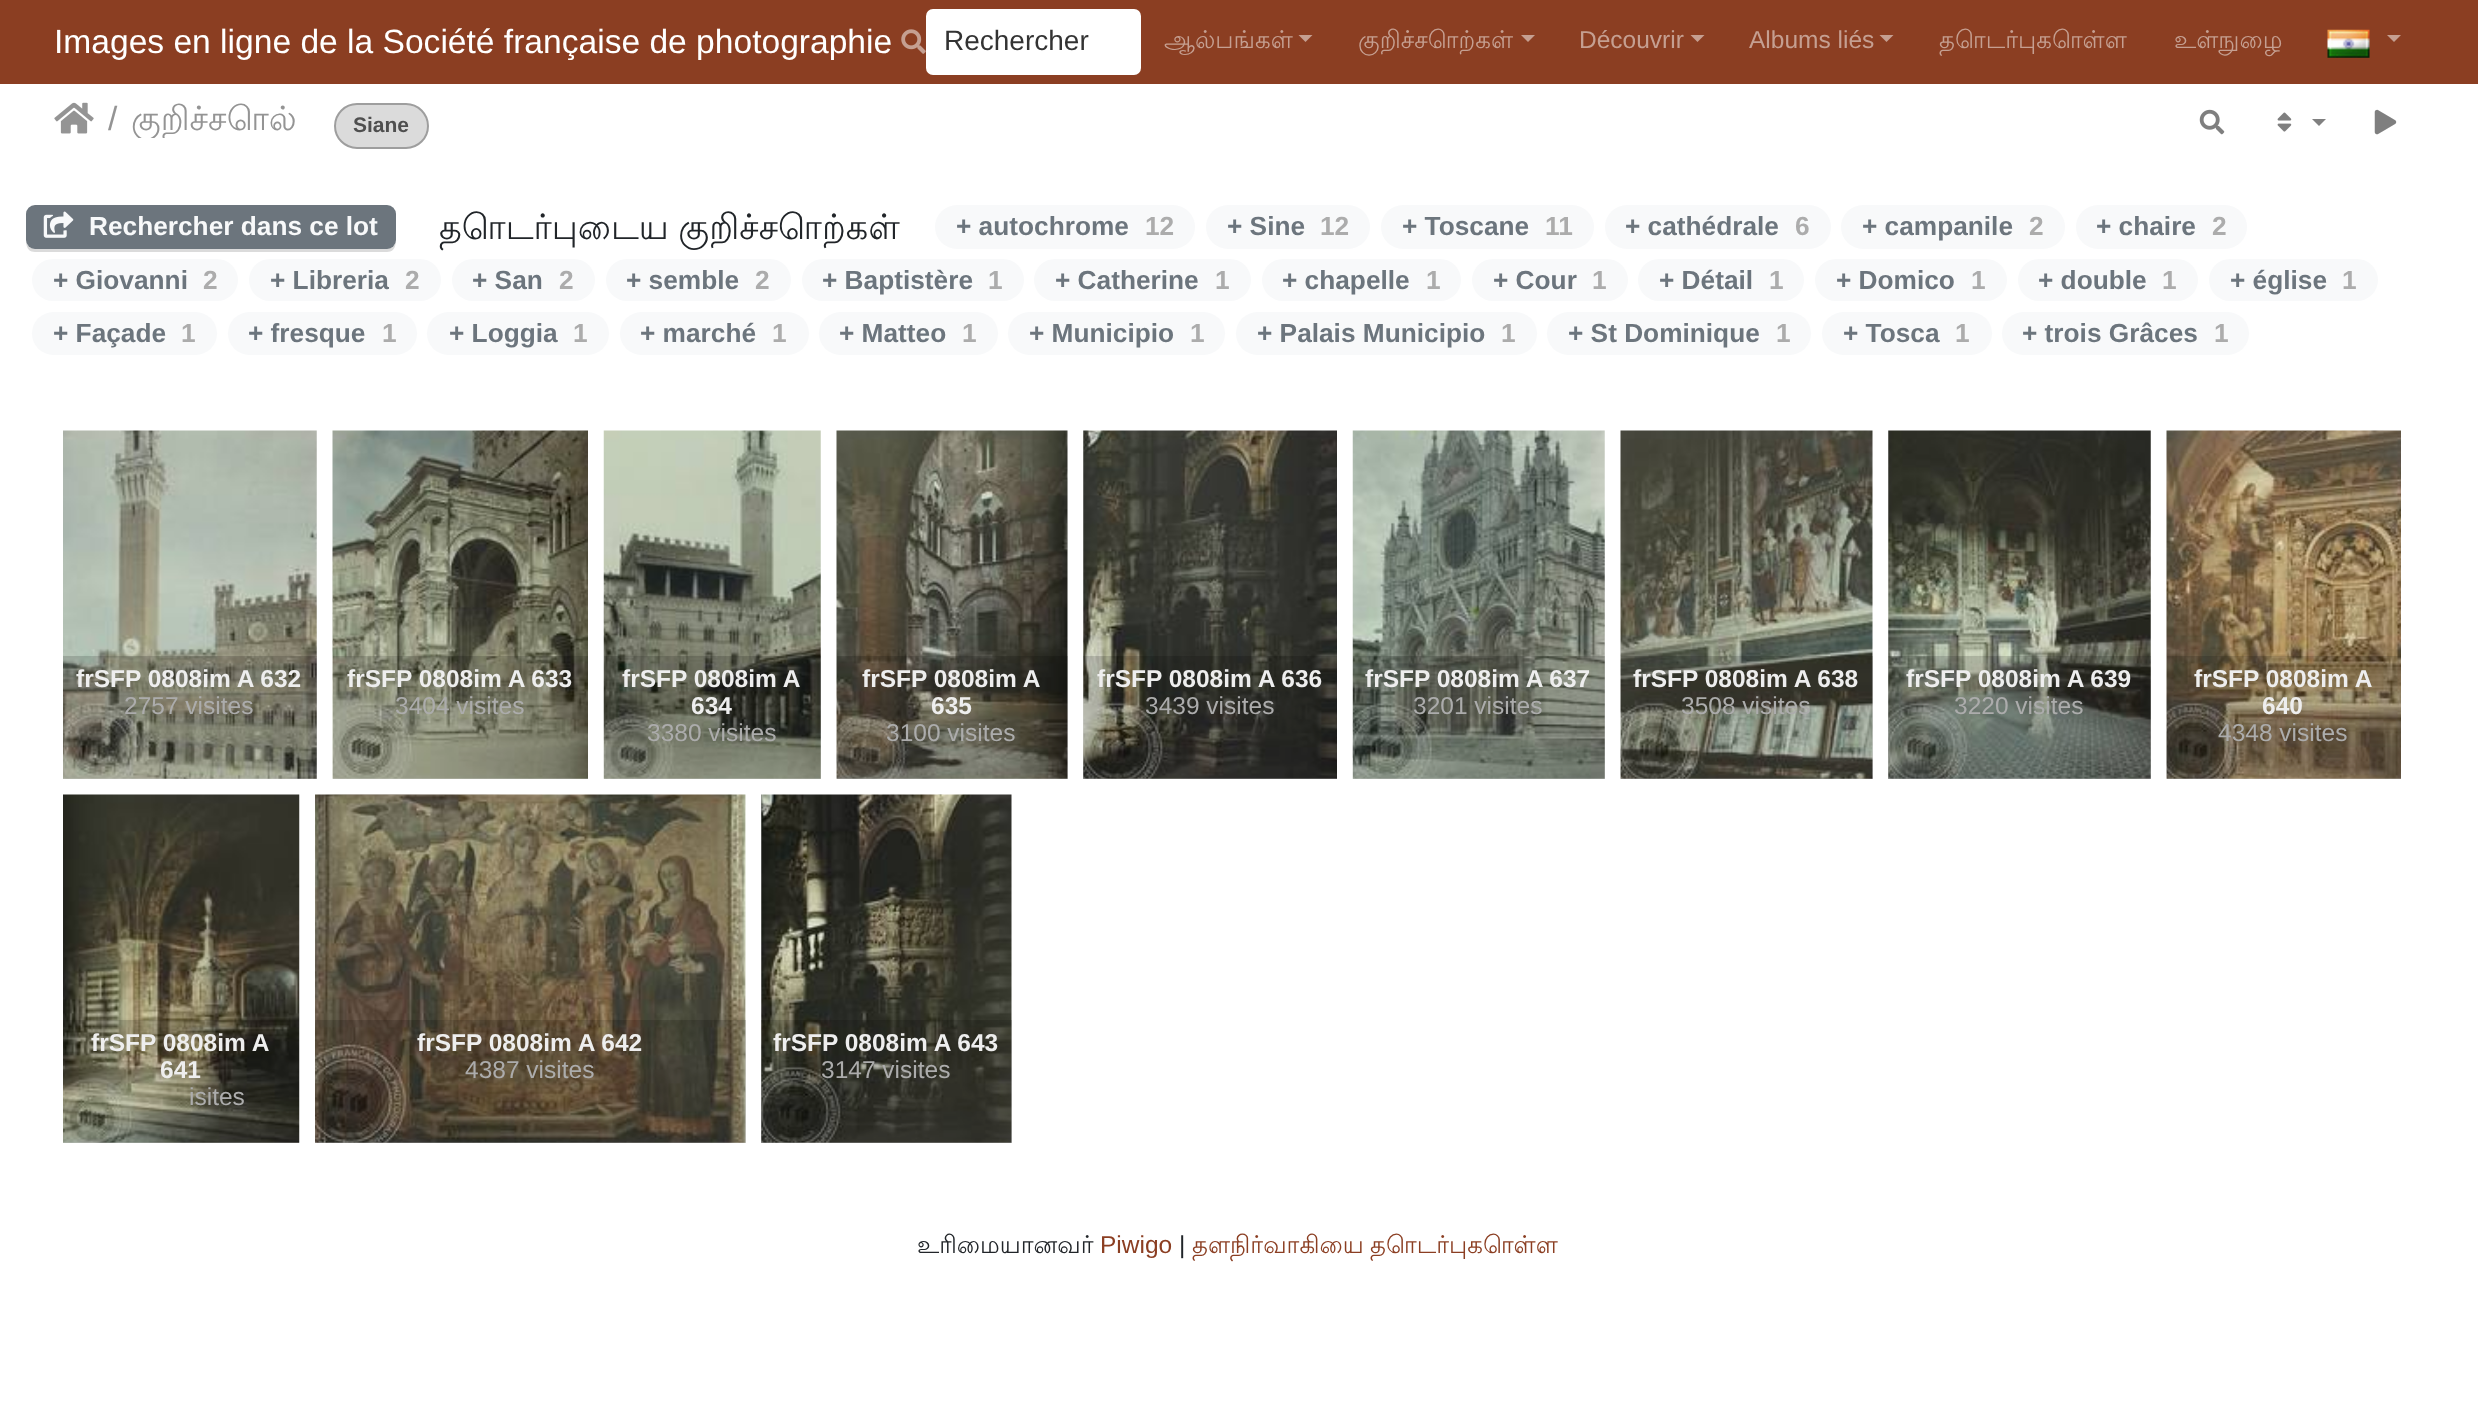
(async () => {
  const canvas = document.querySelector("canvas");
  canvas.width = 2478;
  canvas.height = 1422;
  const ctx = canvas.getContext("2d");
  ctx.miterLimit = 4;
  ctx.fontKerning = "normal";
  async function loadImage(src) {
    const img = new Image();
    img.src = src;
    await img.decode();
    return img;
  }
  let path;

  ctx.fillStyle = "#ffffff";
  ctx.fillRect(0, 0, 2478, 1422);
  ctx.fillStyle = "#8b3e22";
  ctx.fillRect(0, 0, 2478, 84);
  ctx.drawImage(await loadImage("img/1.png"), 901, 29, 25, 25);
  ctx.fillStyle = "#ffffff";
  ctx.beginPath();
  ctx.roundRect(926, 9, 215, 66, 7);
  ctx.fill();
  ctx.fillStyle = "#c59f91";
  path = new Path2D("M1298.5 35H1312.5L1305.5 42Z");
  ctx.fill(path);
  path = new Path2D("M1521 35H1535L1528 42Z");
  ctx.fill(path);
  path = new Path2D("M1690.5 35H1704.5L1697.5 42Z");
  ctx.fill(path);
  path = new Path2D("M1879.5 35H1893.5L1886.5 42Z");
  ctx.fill(path);
  ctx.drawImage(await loadImage("img/2.png"), 2327, 29, 43, 29);
  path = new Path2D("M2387 35H2401L2394 42Z");
  ctx.fill(path);
  ctx.drawImage(await loadImage("img/3.png"), 54, 102, 40, 32);
  ctx.fillStyle = "#dbdbdb";
  ctx.beginPath();
  ctx.roundRect(335, 104, 93, 44, 22);
  ctx.fill();
  ctx.strokeStyle = "#9e9e9e";
  ctx.lineWidth = 2;
  ctx.stroke();
  ctx.drawImage(await loadImage("img/4.png"), 2199, 109, 26, 26);
  ctx.drawImage(await loadImage("img/5.png"), 2277, 112, 15, 20);
  ctx.fillStyle = "#808080";
  path = new Path2D("M2312 119H2326L2319 126Z");
  ctx.fill(path);
  ctx.drawImage(await loadImage("img/6.png"), 2374, 109, 23, 26);
  ctx.fillStyle = "#dbdbdb";
  path = new Path2D("M26 215V234C26 241 25 252 35 252H387C397 252 396 241 396 234V214V240C396 245 392 248 387 248H35C30 248 26 245 26 240Z");
  ctx.fill(path);
  ctx.fillStyle = "#6c757d";
  ctx.beginPath();
  ctx.roundRect(26, 205, 370, 44, 9);
  ctx.fill();
  ctx.drawImage(await loadImage("img/7.png"), 43, 211, 31, 27);
  ctx.fillStyle = "#f8f9fa";
  ctx.beginPath();
  ctx.roundRect(935, 205, 260, 44, 22);
  ctx.fill();
  ctx.beginPath();
  ctx.roundRect(1206, 205, 164, 44, 22);
  ctx.fill();
  ctx.beginPath();
  ctx.roundRect(1381, 205, 213, 44, 22);
  ctx.fill();
  ctx.beginPath();
  ctx.roundRect(1605, 205, 226, 44, 22);
  ctx.fill();
  ctx.beginPath();
  ctx.roundRect(1841, 205, 224, 44, 22);
  ctx.fill();
  ctx.beginPath();
  ctx.roundRect(2076, 205, 171, 44, 22);
  ctx.fill();
  ctx.beginPath();
  ctx.roundRect(32, 259, 206, 42, 21);
  ctx.fill();
  ctx.beginPath();
  ctx.roundRect(249, 259, 192, 42, 21);
  ctx.fill();
  ctx.beginPath();
  ctx.roundRect(452, 259, 143, 42, 21);
  ctx.fill();
  ctx.beginPath();
  ctx.roundRect(606, 259, 185, 42, 21);
  ctx.fill();
  ctx.beginPath();
  ctx.roundRect(802, 259, 222, 42, 21);
  ctx.fill();
  ctx.beginPath();
  ctx.roundRect(1034, 259, 217, 42, 21);
  ctx.fill();
  ctx.beginPath();
  ctx.roundRect(1262, 259, 199, 42, 21);
  ctx.fill();
  ctx.beginPath();
  ctx.roundRect(1472, 259, 156, 42, 21);
  ctx.fill();
  ctx.beginPath();
  ctx.roundRect(1638, 259, 166, 42, 21);
  ctx.fill();
  ctx.beginPath();
  ctx.roundRect(1815, 259, 192, 42, 21);
  ctx.fill();
  ctx.beginPath();
  ctx.roundRect(2018, 259, 180, 42, 21);
  ctx.fill();
  ctx.beginPath();
  ctx.roundRect(2209, 259, 169, 42, 21);
  ctx.fill();
  ctx.beginPath();
  ctx.roundRect(32, 312, 185, 43, 21.5);
  ctx.fill();
  ctx.beginPath();
  ctx.roundRect(228, 312, 189, 43, 21.5);
  ctx.fill();
  ctx.beginPath();
  ctx.roundRect(427, 312, 182, 43, 21.5);
  ctx.fill();
  ctx.beginPath();
  ctx.roundRect(620, 312, 189, 43, 21.5);
  ctx.fill();
  ctx.beginPath();
  ctx.roundRect(819, 312, 179, 43, 21.5);
  ctx.fill();
  ctx.beginPath();
  ctx.roundRect(1008, 312, 217, 43, 21.5);
  ctx.fill();
  ctx.beginPath();
  ctx.roundRect(1236, 312, 301, 43, 21.5);
  ctx.fill();
  ctx.beginPath();
  ctx.roundRect(1547, 312, 264, 43, 21.5);
  ctx.fill();
  ctx.beginPath();
  ctx.roundRect(1822, 312, 170, 43, 21.5);
  ctx.fill();
  ctx.beginPath();
  ctx.roundRect(2002, 312, 247, 43, 21.5);
  ctx.fill();
  ctx.drawImage(await loadImage("img/8.png"), 63, 430, 254, 349);
  ctx.fillStyle = "rgba(0, 0, 0, 0.15)";
  ctx.fillRect(63, 656, 254, 123);
  ctx.drawImage(await loadImage("img/9.png"), 332, 430, 256, 349);
  ctx.fillRect(333, 656, 255, 123);
  ctx.drawImage(await loadImage("img/10.png"), 603, 430, 218, 349);
  ctx.fillRect(604, 656, 217, 123);
  ctx.drawImage(await loadImage("img/11.png"), 836, 430, 232, 349);
  ctx.fillRect(837, 656, 231, 123);
  ctx.drawImage(await loadImage("img/12.png"), 1083, 430, 254, 349);
  ctx.fillRect(1083, 656, 254, 123);
  ctx.drawImage(await loadImage("img/13.png"), 1352, 430, 253, 349);
  ctx.fillRect(1353, 656, 252, 123);
  ctx.drawImage(await loadImage("img/14.png"), 1620, 430, 253, 349);
  ctx.fillRect(1621, 656, 252, 123);
  ctx.drawImage(await loadImage("img/15.png"), 1888, 430, 263, 349);
  ctx.fillRect(1888, 656, 263, 123);
  ctx.drawImage(await loadImage("img/16.png"), 2166, 430, 235, 349);
  ctx.fillRect(2167, 656, 234, 123);
  ctx.drawImage(await loadImage("img/17.png"), 63, 794, 237, 349);
  ctx.fillRect(63, 1020, 236, 123);
  ctx.drawImage(await loadImage("img/18.png"), 315, 794, 431, 349);
  ctx.fillRect(315, 1020, 431, 123);
  ctx.drawImage(await loadImage("img/19.png"), 761, 794, 251, 349);
  ctx.fillRect(761, 1020, 251, 123);
  ctx.font = "33.6px Liberation Sans";
  ctx.fillStyle = "#ffffff";
  ctx.fillText("Images en ligne de la Société française de photographie", 54, 53);
  ctx.font = "28px Liberation Sans";
  ctx.fillStyle = "#333333";
  ctx.fillText("Rechercher", 944, 50);
  ctx.font = "24.5px Lohit Tamil";
  ctx.fillStyle = "#c59f91";
  ctx.fillText("ஆல்பங்கள்", 1164, 48);
  ctx.fillText("குறிச்சொற்கள்", 1358, 48);
  ctx.font = "24.5px Liberation Sans";
  ctx.fillText("Découvrir", 1579, 48);
  ctx.fillText("Albums liés", 1749, 48);
  ctx.font = "24.5px Lohit Tamil";
  ctx.fillText("தொடர்புகொள்ள", 1939, 48);
  ctx.fillText("உள்நுழை", 2174, 48);
  ctx.font = "33.6px Liberation Sans";
  ctx.fillStyle = "#949494";
  ctx.fillText("/", 108, 130);
  ctx.save();
  ctx.beginPath();
  ctx.rect(95, 100, 203, 38);
  ctx.clip();
  ctx.font = "33.6px Lohit Tamil";
  ctx.fillText("குறிச்சொல்", 131, 130);
  ctx.restore();
  ctx.font = "bold 21px Liberation Sans";
  ctx.fillStyle = "#4f4f4f";
  ctx.fillText("Siane", 353, 132);
  ctx.font = "bold 26.25px Liberation Sans";
  ctx.fillStyle = "#f8f9fa";
  ctx.fillText("Rechercher dans ce lot", 89, 235);
  ctx.wordSpacing = "-1px";
  ctx.font = "35px Lohit Tamil";
  ctx.fillStyle = "#212529";
  ctx.fillText("தொடர்புடைய குறிச்சொற்கள்", 439, 239);
  ctx.wordSpacing = "0px";
  ctx.font = "bold 26.25px Liberation Sans";
  ctx.fillStyle = "#6c757d";
  ctx.fillText("+ autochrome", 956, 235);
  ctx.fillStyle = "#acacac";
  ctx.fillText("12", 1145, 235);
  ctx.fillStyle = "#6c757d";
  ctx.fillText("+ Sine", 1227, 235);
  ctx.fillStyle = "#acacac";
  ctx.fillText("12", 1320, 235);
  ctx.fillStyle = "#6c757d";
  ctx.fillText("+ Toscane", 1402, 235);
  ctx.fillStyle = "#acacac";
  ctx.fillText("11", 1545, 235);
  ctx.fillStyle = "#6c757d";
  ctx.fillText("+ cathédrale", 1625, 235);
  ctx.fillStyle = "#acacac";
  ctx.fillText("6", 1795, 235);
  ctx.fillStyle = "#6c757d";
  ctx.fillText("+ campanile", 1862, 235);
  ctx.fillStyle = "#acacac";
  ctx.fillText("2", 2029, 235);
  ctx.fillStyle = "#6c757d";
  ctx.fillText("+ chaire", 2096, 235);
  ctx.fillStyle = "#acacac";
  ctx.fillText("2", 2212, 235);
  ctx.fillStyle = "#6c757d";
  ctx.fillText("+ Giovanni", 53, 289);
  ctx.fillStyle = "#acacac";
  ctx.fillText("2", 203, 289);
  ctx.fillStyle = "#6c757d";
  ctx.fillText("+ Libreria", 270, 289);
  ctx.fillStyle = "#acacac";
  ctx.fillText("2", 405, 289);
  ctx.fillStyle = "#6c757d";
  ctx.fillText("+ San", 472, 289);
  ctx.fillStyle = "#acacac";
  ctx.fillText("2", 559, 289);
  ctx.fillStyle = "#6c757d";
  ctx.fillText("+ semble", 626, 289);
  ctx.fillStyle = "#acacac";
  ctx.fillText("2", 755, 289);
  ctx.fillStyle = "#6c757d";
  ctx.fillText("+ Baptistère", 822, 289);
  ctx.fillStyle = "#acacac";
  ctx.fillText("1", 988, 289);
  ctx.fillStyle = "#6c757d";
  ctx.fillText("+ Catherine", 1055, 289);
  ctx.fillStyle = "#acacac";
  ctx.fillText("1", 1215, 289);
  ctx.fillStyle = "#6c757d";
  ctx.fillText("+ chapelle", 1282, 289);
  ctx.fillStyle = "#acacac";
  ctx.fillText("1", 1426, 289);
  ctx.fillStyle = "#6c757d";
  ctx.fillText("+ Cour", 1493, 289);
  ctx.fillStyle = "#acacac";
  ctx.fillText("1", 1592, 289);
  ctx.fillStyle = "#6c757d";
  ctx.fillText("+ Détail", 1659, 289);
  ctx.fillStyle = "#acacac";
  ctx.fillText("1", 1769, 289);
  ctx.fillStyle = "#6c757d";
  ctx.fillText("+ Domico", 1836, 289);
  ctx.fillStyle = "#acacac";
  ctx.fillText("1", 1971, 289);
  ctx.fillStyle = "#6c757d";
  ctx.fillText("+ double", 2038, 289);
  ctx.fillStyle = "#acacac";
  ctx.fillText("1", 2162, 289);
  ctx.fillStyle = "#6c757d";
  ctx.fillText("+ église", 2230, 289);
  ctx.fillStyle = "#acacac";
  ctx.fillText("1", 2342, 289);
  ctx.fillStyle = "#6c757d";
  ctx.fillText("+ Façade", 53, 342);
  ctx.fillStyle = "#acacac";
  ctx.fillText("1", 181, 342);
  ctx.fillStyle = "#6c757d";
  ctx.fillText("+ fresque", 248, 342);
  ctx.fillStyle = "#acacac";
  ctx.fillText("1", 382, 342);
  ctx.fillStyle = "#6c757d";
  ctx.fillText("+ Loggia", 449, 342);
  ctx.fillStyle = "#acacac";
  ctx.fillText("1", 573, 342);
  ctx.fillStyle = "#6c757d";
  ctx.fillText("+ marché", 640, 342);
  ctx.fillStyle = "#acacac";
  ctx.fillText("1", 772, 342);
  ctx.fillStyle = "#6c757d";
  ctx.fillText("+ Matteo", 839, 342);
  ctx.fillStyle = "#acacac";
  ctx.fillText("1", 962, 342);
  ctx.fillStyle = "#6c757d";
  ctx.fillText("+ Municipio", 1029, 342);
  ctx.fillStyle = "#acacac";
  ctx.fillText("1", 1190, 342);
  ctx.fillStyle = "#6c757d";
  ctx.fillText("+ Palais Municipio", 1257, 342);
  ctx.fillStyle = "#acacac";
  ctx.fillText("1", 1501, 342);
  ctx.fillStyle = "#6c757d";
  ctx.fillText("+ St Dominique", 1568, 342);
  ctx.fillStyle = "#acacac";
  ctx.fillText("1", 1776, 342);
  ctx.fillStyle = "#6c757d";
  ctx.fillText("+ Tosca", 1843, 342);
  ctx.fillStyle = "#acacac";
  ctx.fillText("1", 1955, 342);
  ctx.fillStyle = "#6c757d";
  ctx.fillText("+ trois Grâces", 2022, 342);
  ctx.fillStyle = "#acacac";
  ctx.fillText("1", 2214, 342);
  ctx.font = "bold 24.5px Liberation Sans";
  ctx.fillStyle = "#eeeeee";
  ctx.fillText("frSFP 0808im A 632", 76, 687);
  ctx.font = "24.5px Liberation Sans";
  ctx.fillStyle = "#acacac";
  ctx.fillText("2757 visites", 124, 714);
  ctx.font = "bold 24.5px Liberation Sans";
  ctx.fillStyle = "#eeeeee";
  ctx.fillText("frSFP 0808im A 633", 347, 687);
  ctx.font = "24.5px Liberation Sans";
  ctx.fillStyle = "#acacac";
  ctx.fillText("3404 visites", 395, 714);
  ctx.font = "bold 24.5px Liberation Sans";
  ctx.fillStyle = "#eeeeee";
  ctx.fillText("frSFP 0808im A", 622, 687);
  ctx.fillText("634", 691, 714);
  ctx.font = "24.5px Liberation Sans";
  ctx.fillStyle = "#acacac";
  ctx.fillText("3380 visites", 647, 741);
  ctx.font = "bold 24.5px Liberation Sans";
  ctx.fillStyle = "#eeeeee";
  ctx.fillText("frSFP 0808im A", 862, 687);
  ctx.fillText("635", 931, 714);
  ctx.font = "24.5px Liberation Sans";
  ctx.fillStyle = "#acacac";
  ctx.fillText("3100 visites", 886, 741);
  ctx.font = "bold 24.5px Liberation Sans";
  ctx.fillStyle = "#eeeeee";
  ctx.fillText("frSFP 0808im A 636", 1097, 687);
  ctx.font = "24.5px Liberation Sans";
  ctx.fillStyle = "#acacac";
  ctx.fillText("3439 visites", 1145, 714);
  ctx.font = "bold 24.5px Liberation Sans";
  ctx.fillStyle = "#eeeeee";
  ctx.fillText("frSFP 0808im A 637", 1365, 687);
  ctx.font = "24.5px Liberation Sans";
  ctx.fillStyle = "#acacac";
  ctx.fillText("3201 visites", 1413, 714);
  ctx.font = "bold 24.5px Liberation Sans";
  ctx.fillStyle = "#eeeeee";
  ctx.fillText("frSFP 0808im A 638", 1633, 687);
  ctx.font = "24.5px Liberation Sans";
  ctx.fillStyle = "#acacac";
  ctx.fillText("3508 visites", 1681, 714);
  ctx.font = "bold 24.5px Liberation Sans";
  ctx.fillStyle = "#eeeeee";
  ctx.fillText("frSFP 0808im A 639", 1906, 687);
  ctx.font = "24.5px Liberation Sans";
  ctx.fillStyle = "#acacac";
  ctx.fillText("3220 visites", 1954, 714);
  ctx.font = "bold 24.5px Liberation Sans";
  ctx.fillStyle = "#eeeeee";
  ctx.fillText("frSFP 0808im A", 2194, 687);
  ctx.fillText("640", 2262, 714);
  ctx.font = "24.5px Liberation Sans";
  ctx.fillStyle = "#acacac";
  ctx.fillText("4348 visites", 2218, 741);
  ctx.font = "bold 24.5px Liberation Sans";
  ctx.fillStyle = "#eeeeee";
  ctx.fillText("frSFP 0808im A", 91, 1051);
  ctx.fillText("641", 160, 1078);
  ctx.font = "24.5px Liberation Sans";
  ctx.fillStyle = "#acacac";
  ctx.fillText("isites", 189, 1105);
  ctx.font = "bold 24.5px Liberation Sans";
  ctx.fillStyle = "#eeeeee";
  ctx.fillText("frSFP 0808im A 642", 417, 1051);
  ctx.font = "24.5px Liberation Sans";
  ctx.fillStyle = "#acacac";
  ctx.fillText("4387 visites", 465, 1078);
  ctx.font = "bold 24.5px Liberation Sans";
  ctx.fillStyle = "#eeeeee";
  ctx.fillText("frSFP 0808im A 643", 773, 1051);
  ctx.font = "24.5px Liberation Sans";
  ctx.fillStyle = "#acacac";
  ctx.fillText("3147 visites", 821, 1078);
  ctx.font = "24.5px Lohit Tamil";
  ctx.fillStyle = "#212529";
  ctx.fillText("உரிமையானவர்", 917, 1253);
  ctx.font = "24.5px Liberation Sans";
  ctx.fillStyle = "#8b3e22";
  ctx.fillText("Piwigo", 1100, 1253);
  ctx.fillStyle = "#212529";
  ctx.fillText("|", 1179, 1253);
  ctx.wordSpacing = "-1px";
  ctx.font = "24.5px Lohit Tamil";
  ctx.fillStyle = "#8b3e22";
  ctx.fillText("தளநிர்வாகியை தொடர்புகொள்ள", 1192, 1253);
})();
